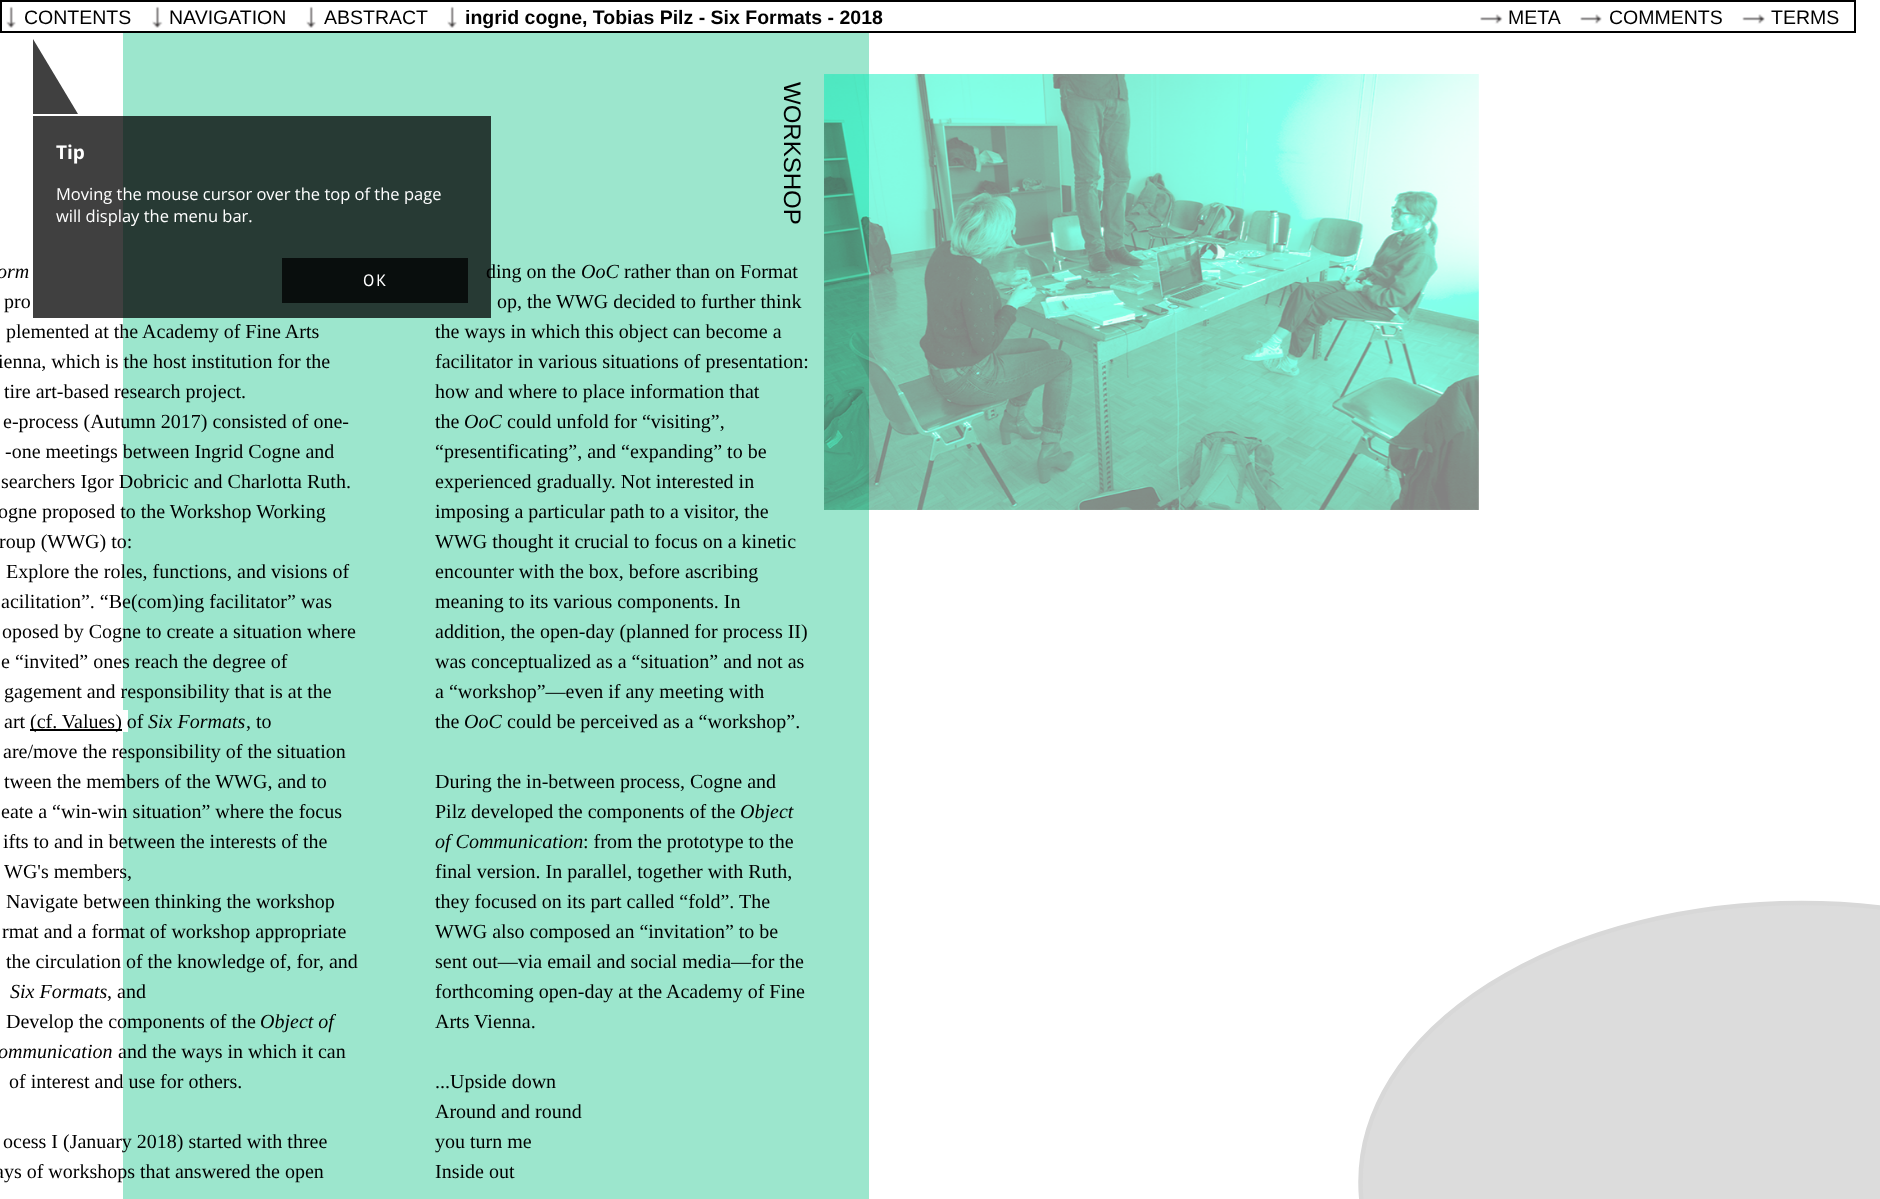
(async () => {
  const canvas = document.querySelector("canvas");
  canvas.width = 1880;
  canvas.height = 1199;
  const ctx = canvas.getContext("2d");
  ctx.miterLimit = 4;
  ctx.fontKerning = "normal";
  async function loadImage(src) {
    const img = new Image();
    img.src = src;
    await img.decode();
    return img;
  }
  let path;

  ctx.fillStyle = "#ffffff";
  ctx.fillRect(0, 0, 1880, 1199);
  ctx.strokeStyle = "#000000";
  ctx.lineWidth = 2;
  ctx.strokeRect(1, 1, 1854, 31);
  ctx.drawImage(await loadImage("img/1.png"), 6, 6, 10, 22);
  ctx.drawImage(await loadImage("img/2.png"), 152, 6, 11, 22);
  ctx.drawImage(await loadImage("img/1.png"), 306, 6, 10, 22);
  ctx.drawImage(await loadImage("img/1.png"), 447, 6, 10, 22);
  ctx.drawImage(await loadImage("img/3.png"), 1480, 14, 23, 10);
  ctx.drawImage(await loadImage("img/4.png"), 1580, 14, 22, 10);
  ctx.drawImage(await loadImage("img/5.png"), 1742, 14, 23, 10);
  ctx.fillStyle = "#9ce6cd";
  ctx.fillRect(123, 33, 746, 1166);
  ctx.drawImage(await loadImage("img/6.png"), 824, 74, 655, 436);
  ctx.fillStyle = "#ffffff";
  ctx.fillRect(123, 710, 5, 22);
  ctx.fillStyle = "#000000";
  ctx.fillRect(30, 729, 92, 2);
  ctx.fillStyle = "#dcdcdc";
  ctx.beginPath();
  ctx.ellipse(1801.5, 1182, 441, 279, 0, 0, Math.PI * 2);
  ctx.fill();
  ctx.strokeStyle = "#d8d8d8";
  ctx.lineWidth = 4.5;
  ctx.stroke();
  ctx.fillStyle = "#404040";
  path = new Path2D("M78 114H33V39Z");
  ctx.fill(path);
  ctx.font = "19.5px Liberation Sans";
  ctx.fillStyle = "#000000";
  for (const [text, x, y] of [
    ["CONTENTS", 24, 24],
    ["NAVIGATION", 169, 24],
    ["ABSTRACT", 324, 24],
  ]) {
    ctx.fillText(text, x, y);
  }
  ctx.font = "bold 19.5px Liberation Sans";
  ctx.fillText("ingrid cogne, Tobias Pilz - Six Formats - 2018", 465, 24);
  ctx.font = "19.5px Liberation Sans";
  for (const [text, x, y] of [
    ["META", 1508, 24],
    ["COMMENTS", 1609, 24],
    ["TERMS", 1771, 24],
  ]) {
    ctx.fillText(text, x, y);
  }
  ctx.font = "24px Liberation Sans";
  ctx.save();
  ctx.translate(784, 82);
  ctx.rotate(90 * Math.PI / 180);
  ctx.fillText("WORKSHOP", 0, 0);
  ctx.restore();
  ctx.font = "italic 20px Liberation Serif";
  ctx.fillText("orm", -3, 278);
  ctx.font = "20px Liberation Serif";
  for (const [text, x, y] of [
    ["pro", 4, 308],
    ["plemented at the Academy of Fine Arts", 6, 338],
    ["ienna, which is the host institution for the", -2, 368],
    ["tire art-based research project.", 4, 398],
    ["e-process (Autumn 2017) consisted of one-", 3, 428],
    ["-one meetings between Ingrid Cogne and", 5, 458],
    ["searchers Igor Dobricic and Charlotta Ruth.", 1, 488],
    ["ogne proposed to the Workshop Working", -2, 518],
    ["roup (WWG) to:", -1, 548],
    ["Explore the roles, functions, and visions of", 6, 578],
    ["acilitation”. “Be(com)ing facilitator” was", 1, 608],
    ["oposed by Cogne to create a situation where", 2, 638],
    ["e “invited” ones reach the degree of", 1, 668],
    ["gagement and responsibility that is at the", 4, 698],
    ["art", 4, 728],
    ["(cf. Values) of", 30, 728],
  ]) {
    ctx.fillText(text, x, y);
  }
  ctx.font = "italic 20px Liberation Serif";
  ctx.fillText("Six Formats", 148, 728);
  ctx.font = "20px Liberation Serif";
  for (const [text, x, y] of [
    [", to", 246, 728],
    ["are/move the responsibility of the situation", 3, 758],
    ["tween the members of the WWG, and to", 4, 788],
    ["eate a “win-win situation” where the focus", 1, 818],
    ["ifts to and in between the interests of the", 3, 848],
    ["WG's members,", 4, 878],
    ["Navigate between thinking the workshop", 6, 908],
    ["rmat and a format of workshop appropriate", 2, 938],
    ["the circulation of the knowledge of, for, and", 6, 968],
  ]) {
    ctx.fillText(text, x, y);
  }
  ctx.font = "italic 20px Liberation Serif";
  ctx.fillText("Six Formats", 10, 998);
  ctx.font = "20px Liberation Serif";
  ctx.fillText(", and", 107, 998);
  ctx.fillText("Develop the components of the", 6, 1028);
  ctx.font = "italic 20px Liberation Serif";
  ctx.fillText("Object of", 260, 1028);
  ctx.fillText("ommunication", -2, 1058);
  ctx.font = "20px Liberation Serif";
  for (const [text, x, y] of [
    ["and the ways in which it can", 118, 1058],
    ["of interest and use for others.", 9, 1088],
    ["ocess I (January 2018) started with three", 3, 1148],
    ["ays of workshops that answered the open", -5, 1178],
    ["ding on the", 486, 278],
  ]) {
    ctx.fillText(text, x, y);
  }
  ctx.font = "italic 20px Liberation Serif";
  ctx.fillText("OoC", 581, 278);
  ctx.font = "20px Liberation Serif";
  for (const [text, x, y] of [
    ["rather than on Format", 624, 278],
    ["op, the WWG decided to further think", 497, 308],
    ["the ways in which this object can become a", 435, 338],
    ["facilitator in various situations of presentation:", 435, 368],
    ["how and where to place information that", 435, 398],
    ["the", 435, 428],
  ]) {
    ctx.fillText(text, x, y);
  }
  ctx.font = "italic 20px Liberation Serif";
  ctx.fillText("OoC", 464, 428);
  ctx.font = "20px Liberation Serif";
  for (const [text, x, y] of [
    ["could unfold for “visiting”,", 507, 428],
    ["“presentificating”, and “expanding” to be", 435, 458],
    ["experienced gradually. Not interested in", 435, 488],
    ["imposing a particular path to a visitor, the", 435, 518],
    ["WWG thought it crucial to focus on a kinetic", 435, 548],
    ["encounter with the box, before ascribing", 435, 578],
    ["meaning to its various components. In", 435, 608],
    ["addition, the open-day (planned for process II)", 435, 638],
    ["was conceptualized as a “situation” and not as", 435, 668],
    ["a “workshop”—even if any meeting with", 435, 698],
    ["the", 435, 728],
  ]) {
    ctx.fillText(text, x, y);
  }
  ctx.font = "italic 20px Liberation Serif";
  ctx.fillText("OoC", 464, 728);
  ctx.font = "20px Liberation Serif";
  for (const [text, x, y] of [
    ["could be perceived as a “workshop”.", 507, 728],
    ["During the in-between process, Cogne and", 435, 788],
    ["Pilz developed the components of the", 435, 818],
  ]) {
    ctx.fillText(text, x, y);
  }
  ctx.font = "italic 20px Liberation Serif";
  ctx.fillText("Object", 740, 818);
  ctx.fillText("of Communication", 435, 848);
  ctx.font = "20px Liberation Serif";
  for (const [text, x, y] of [
    [": from the prototype to the", 583, 848],
    ["final version. In parallel, together with Ruth,", 435, 878],
    ["they focused on its part called “fold”. The", 435, 908],
    ["WWG also composed an “invitation” to be", 435, 938],
    ["sent out—via email and social media—for the", 435, 968],
    ["forthcoming open-day at the Academy of Fine", 435, 998],
    ["Arts Vienna.", 435, 1028],
    ["...Upside down", 435, 1088],
    ["Around and round", 435, 1118],
    ["you turn me", 435, 1148],
    ["Inside out", 435, 1178],
  ]) {
    ctx.fillText(text, x, y);
  }
  ctx.fillStyle = "rgba(0, 0, 0, 0.75)";
  ctx.fillRect(33, 116, 458, 202);
  ctx.font = "bold 19px Open Sans";
  ctx.fillStyle = "#ffffff";
  ctx.fillText("Tip", 56, 159);
  ctx.font = "16.5px Open Sans";
  ctx.fillText("Moving the mouse cursor over the top of the page", 56, 200);
  ctx.fillText("will display the menu bar.", 56, 222);
  ctx.fillStyle = "rgba(0, 0, 0, 0.75)";
  ctx.fillRect(282, 258, 186, 45);
  ctx.letterSpacing = "2px";
  ctx.font = "16.5px PT Sans";
  ctx.fillStyle = "#ffffff";
  ctx.fillText("OK", 363, 286);
})();
